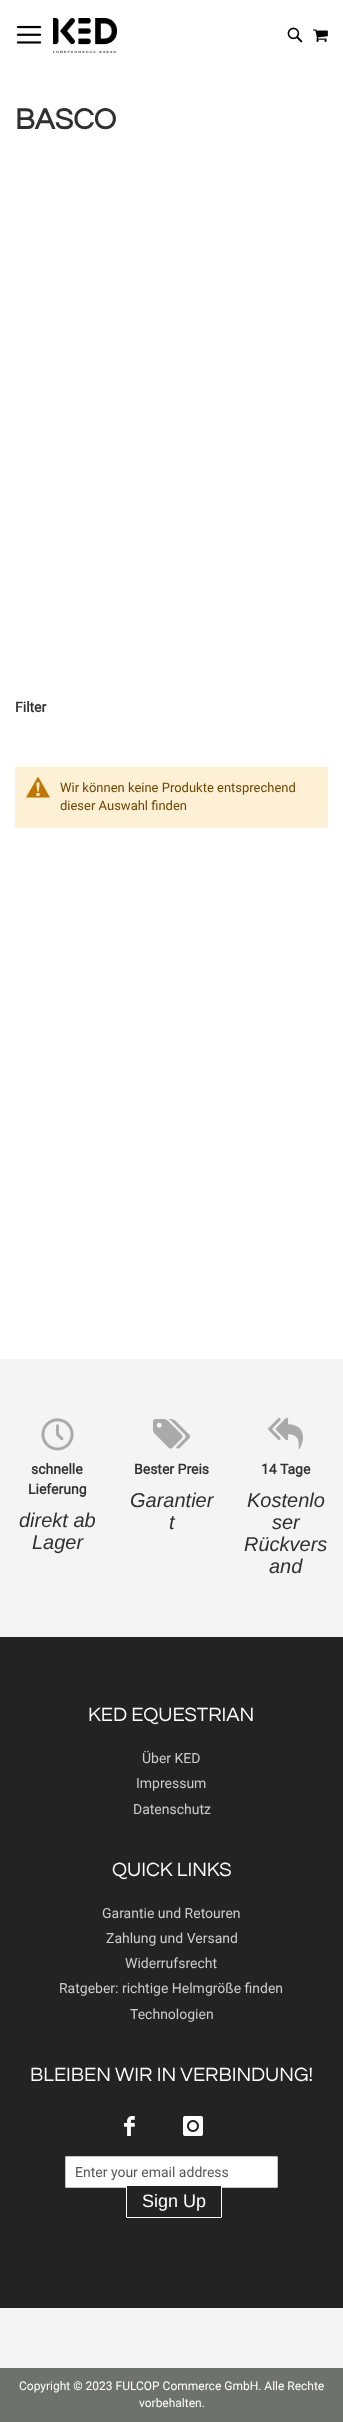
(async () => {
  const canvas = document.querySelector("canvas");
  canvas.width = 343;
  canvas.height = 2422;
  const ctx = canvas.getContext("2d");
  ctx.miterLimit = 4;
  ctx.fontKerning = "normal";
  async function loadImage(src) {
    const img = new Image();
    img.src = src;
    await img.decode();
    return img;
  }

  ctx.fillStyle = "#ffffff";
  ctx.fillRect(0, 0, 343, 2422);
  ctx.drawImage(await loadImage("img/1.png"), 16, 25, 26, 19);
  ctx.drawImage(await loadImage("img/2.png"), 53, 18, 64, 35);
  ctx.drawImage(await loadImage("img/3.png"), 287, 27, 16, 16);
  ctx.drawImage(await loadImage("img/4.png"), 313, 29, 15, 13);
  ctx.fillStyle = "#fdf0d5";
  ctx.fillRect(15, 767, 313, 61);
  ctx.drawImage(await loadImage("img/5.png"), 26, 777, 24, 21);
  ctx.fillStyle = "#f4f4f4";
  ctx.fillRect(0, 1359, 343, 1009);
  ctx.drawImage(await loadImage("img/6.png"), 41, 1418, 33, 33);
  ctx.drawImage(await loadImage("img/7.png"), 153, 1419, 38, 30);
  ctx.drawImage(await loadImage("img/8.png"), 268, 1417, 35, 32);
  ctx.fillStyle = "#232323";
  ctx.fillRect(0, 1637, 343, 671);
  ctx.drawImage(await loadImage("img/9.png"), 124, 2116, 11, 20);
  ctx.drawImage(await loadImage("img/10.png"), 183, 2116, 20, 20);
  ctx.fillStyle = "#ffffff";
  ctx.beginPath();
  ctx.roundRect(65.5, 2156.5, 212, 31, 0.5);
  ctx.fill();
  ctx.strokeStyle = "#c2c2c2";
  ctx.stroke();
  ctx.fillStyle = "#232323";
  ctx.beginPath();
  ctx.roundRect(126.5, 2185.5, 95, 32, 0.5);
  ctx.fill();
  ctx.strokeStyle = "#ffffff";
  ctx.stroke();
  ctx.fillStyle = "#6e716e";
  ctx.fillRect(0, 2368, 343, 54);
  ctx.font = "bold 30px Questrial";
  ctx.fillStyle = "#303030";
  ctx.fillText("BASCO", 15, 129);
  ctx.font = "bold 14px Roboto";
  ctx.fillText("Filter", 15, 712);
  ctx.font = "13px Roboto";
  ctx.fillStyle = "#6f4400";
  ctx.fillText("Wir können keine Produkte entsprechend", 60, 792);
  ctx.fillText("dieser Auswahl finden", 60, 810);
  ctx.font = "bold 14px Roboto";
  ctx.fillStyle = "#303030";
  ctx.fillText("schnelle", 31, 1474);
  ctx.fillText("Lieferung", 28, 1494);
  ctx.font = "italic 20px Liberation Sans";
  ctx.fillText("direkt ab", 19, 1527);
  ctx.fillText("Lager", 32, 1549);
  ctx.font = "bold 14px Roboto";
  ctx.fillText("Bester Preis", 134, 1474);
  ctx.font = "italic 20px Liberation Sans";
  ctx.fillText("Garantier", 130, 1507);
  ctx.fillText("t", 169, 1529);
  ctx.font = "bold 14px Roboto";
  ctx.fillText("14 Tage", 261, 1474);
  ctx.font = "italic 20px Liberation Sans";
  for (const [text, x, y] of [
    ["Kostenlo", 247, 1507],
    ["ser", 272, 1529],
    ["Rückvers", 244, 1551],
    ["and", 269, 1573],
  ]) {
    ctx.fillText(text, x, y);
  }
  ctx.font = "20px Questrial";
  ctx.fillStyle = "#ffffff";
  ctx.fillText("KED EQUESTRIAN", 88, 1721);
  ctx.font = "14px Roboto";
  ctx.fillStyle = "#cccccc";
  for (const [text, x, y] of [
    ["Über KED", 142, 1763],
    ["Impressum", 136, 1788],
    ["Datenschutz", 133, 1814],
  ]) {
    ctx.fillText(text, x, y);
  }
  ctx.font = "20px Questrial";
  ctx.fillStyle = "#ffffff";
  ctx.fillText("QUICK LINKS", 112, 1876);
  ctx.font = "14px Roboto";
  ctx.fillStyle = "#cccccc";
  for (const [text, x, y] of [
    ["Garantie und Retouren", 102, 1918],
    ["Zahlung und Versand", 106, 1943],
    ["Widerrufsrecht", 125, 1968],
    ["Ratgeber: richtige Helmgröße finden", 59, 1993],
    ["Technologien", 130, 2019],
  ]) {
    ctx.fillText(text, x, y);
  }
  ctx.font = "20px Questrial";
  ctx.fillStyle = "#ffffff";
  ctx.fillText("BLEIBEN WIR IN VERBINDUNG!", 30, 2081);
  ctx.font = "14px Roboto";
  ctx.fillStyle = "#575757";
  ctx.fillText("Enter your email address", 75, 2177);
  ctx.font = "18px Liberation Sans";
  ctx.fillStyle = "#ffffff";
  ctx.fillText("Sign Up", 142, 2207);
  ctx.font = "12px Roboto";
  ctx.fillText("Copyright © 2023 FULCOP Commerce GmbH. Alle Rechte", 19, 2390);
  ctx.fillText("vorbehalten.", 139, 2407);
})();
